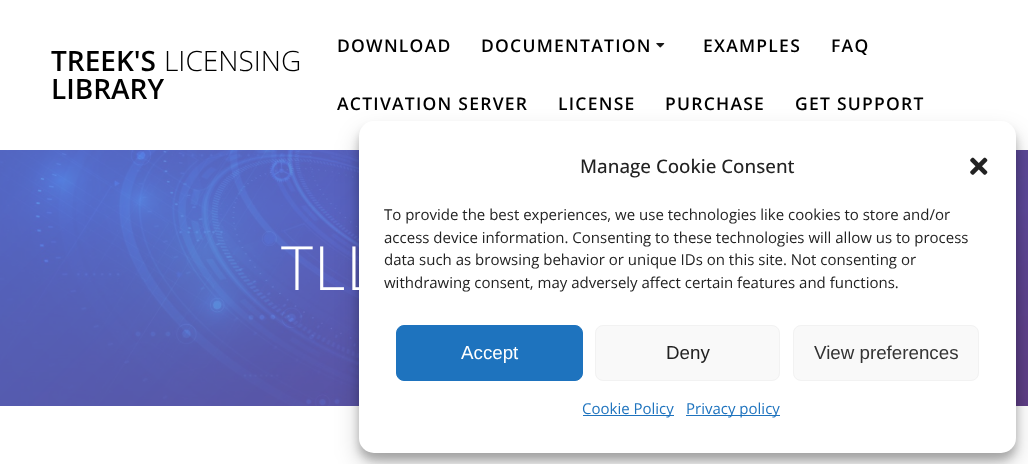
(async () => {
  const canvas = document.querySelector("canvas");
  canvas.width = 1028;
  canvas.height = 464;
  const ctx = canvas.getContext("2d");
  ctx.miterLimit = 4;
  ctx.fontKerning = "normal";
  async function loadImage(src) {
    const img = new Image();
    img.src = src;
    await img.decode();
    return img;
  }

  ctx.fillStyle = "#ffffff";
  ctx.fillRect(0, 0, 1028, 464);
  ctx.drawImage(await loadImage("img/1.png"), 656, 43, 9, 5);
  ctx.drawImage(await loadImage("img/2.png"), 0, 150, 1028, 256);
  ctx.fillStyle = "rgba(0, 0, 0, 0.23)";
  ctx.filter = "blur(4px)";
  ctx.beginPath();
  ctx.roundRect(359, 129, 657, 331, 15);
  ctx.fill();
  ctx.filter = "none";
  ctx.fillStyle = "rgba(0, 0, 0, 0.19)";
  ctx.filter = "blur(12.5px)";
  ctx.beginPath();
  ctx.roundRect(359, 134, 657, 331, 15);
  ctx.fill();
  ctx.filter = "none";
  ctx.fillStyle = "#ffffff";
  ctx.beginPath();
  ctx.roundRect(359, 121, 657, 332, 15);
  ctx.fill();
  ctx.drawImage(await loadImage("img/3.png"), 970, 157, 18, 18);
  ctx.fillStyle = "#1e73be";
  ctx.beginPath();
  ctx.roundRect(396.5, 325.5, 186, 55, 7.5);
  ctx.fill();
  ctx.strokeStyle = "#1e73be";
  ctx.stroke();
  ctx.fillStyle = "#f9f9f9";
  ctx.beginPath();
  ctx.roundRect(595.5, 325.5, 184, 55, 7.5);
  ctx.fill();
  ctx.strokeStyle = "#f2f2f2";
  ctx.stroke();
  ctx.beginPath();
  ctx.roundRect(793.5, 325.5, 185, 55, 7.5);
  ctx.fill();
  ctx.stroke();
  ctx.fillStyle = "#1e73be";
  ctx.fillRect(583, 415, 91, 1);
  ctx.fillRect(686, 415, 94, 1);
  ctx.font = "600 28px Open Sans";
  ctx.fillStyle = "#000000";
  ctx.fillText("TREEK'S", 51, 71);
  ctx.font = "300 28px Open Sans";
  ctx.fillText("LICENSING", 164, 71);
  ctx.font = "600 28px Open Sans";
  ctx.fillText("LIBRARY", 51, 99);
  ctx.letterSpacing = "1.25px";
  ctx.font = "600 17.5px Open Sans";
  for (const [text, x, y] of [
    ["DOWNLOAD", 337, 52],
    ["DOCUMENTATION", 481, 52],
    ["EXAMPLES", 703, 52],
    ["FAQ", 831, 52],
    ["ACTIVATION SERVER", 337, 110],
    ["LICENSE", 558, 110],
    ["PURCHASE", 665, 110],
    ["GET SUPPORT", 795, 110],
  ]) {
    ctx.fillText(text, x, y);
  }
  ctx.letterSpacing = "1px";
  ctx.font = "300 61px Open Sans";
  ctx.fillStyle = "#ffffff";
  ctx.fillText("TLL", 281, 290);
  ctx.letterSpacing = "0px";
  ctx.font = "500 18.75px Open Sans";
  ctx.fillStyle = "#222222";
  ctx.fillText("Manage Cookie Consent", 580, 173);
  ctx.font = "15px Open Sans";
  for (const [text, x, y] of [
    ["To provide the best experiences, we use technologies like cookies to store and/or", 384, 220],
    ["access device information. Consenting to these technologies will allow us to process", 384, 243],
    ["data such as browsing behavior or unique IDs on this site. Not consenting or", 384, 265],
    ["withdrawing consent, may adversely affect certain features and functions.", 384, 288],
  ]) {
    ctx.fillText(text, x, y);
  }
  ctx.font = "18.75px Liberation Sans";
  ctx.fillStyle = "#ffffff";
  ctx.fillText("Accept", 461, 359);
  ctx.fillStyle = "#222222";
  ctx.fillText("Deny", 666, 359);
  ctx.fillStyle = "#333333";
  ctx.fillText("View preferences", 814, 359);
  ctx.font = "15px Open Sans";
  ctx.fillStyle = "#1e73be";
  ctx.fillText("Cookie Policy", 582, 414);
  ctx.fillText("Privacy policy", 686, 414);
})();
